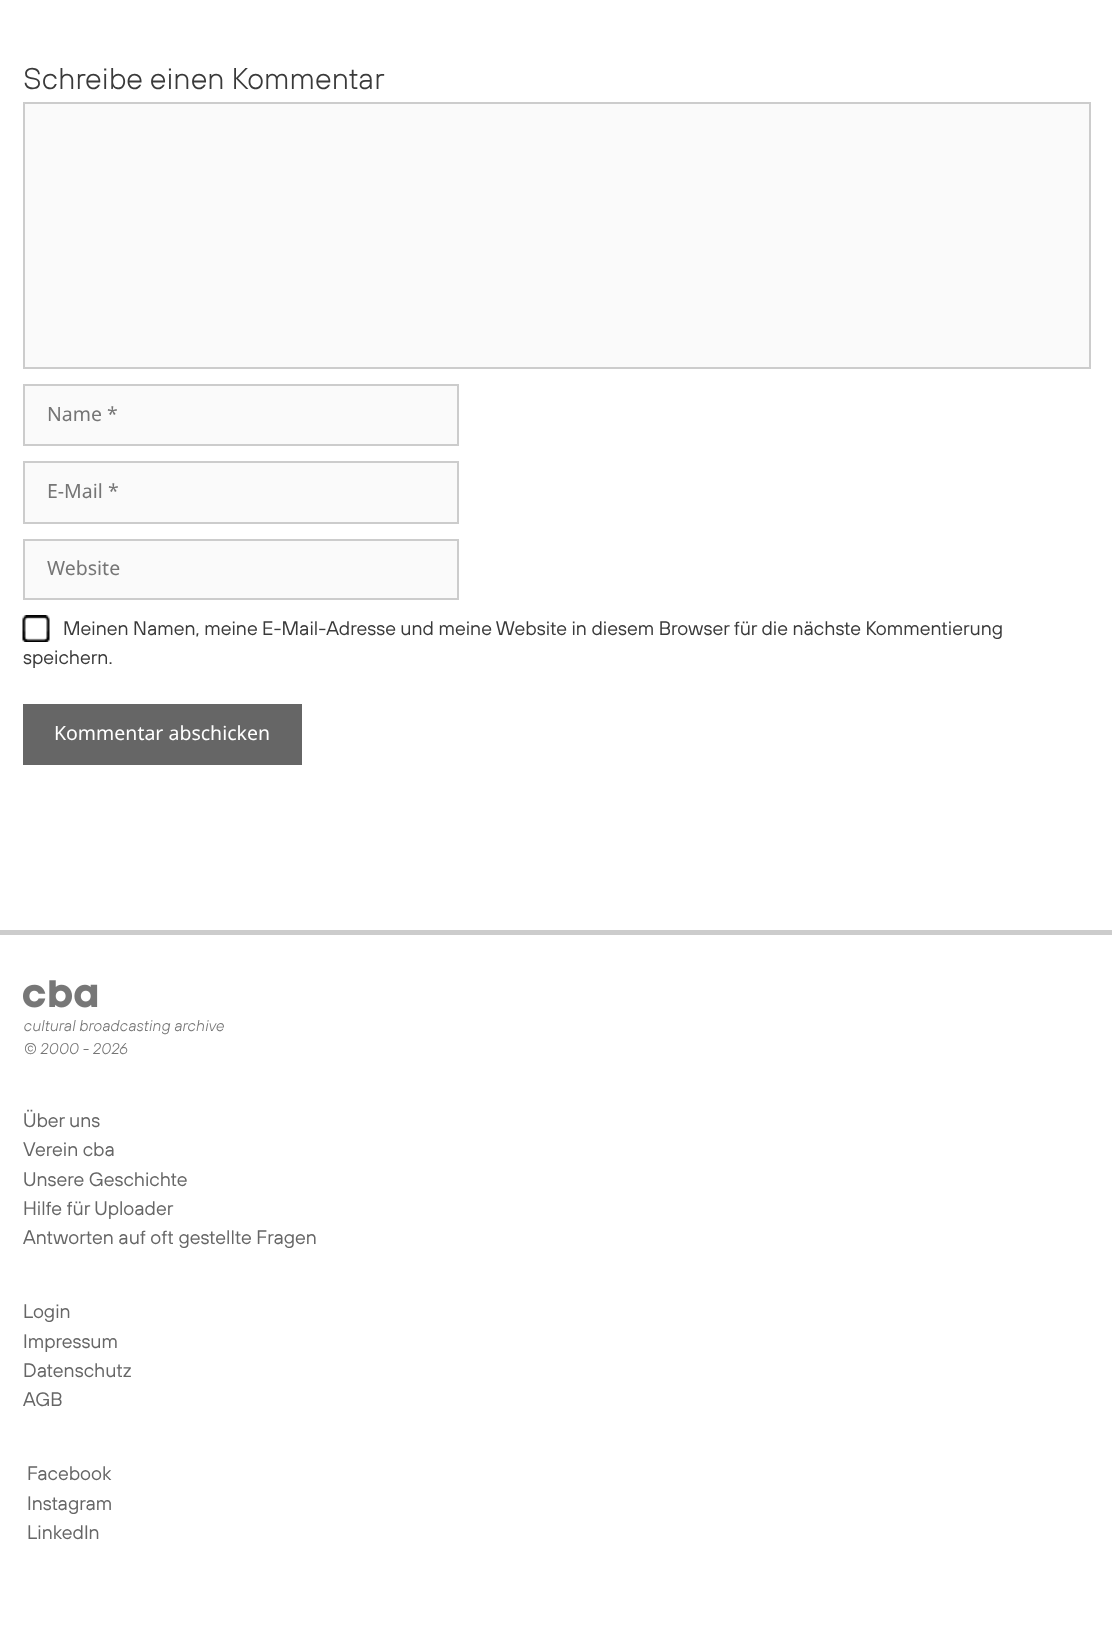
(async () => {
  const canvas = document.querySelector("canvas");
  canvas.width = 1112;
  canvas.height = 1638;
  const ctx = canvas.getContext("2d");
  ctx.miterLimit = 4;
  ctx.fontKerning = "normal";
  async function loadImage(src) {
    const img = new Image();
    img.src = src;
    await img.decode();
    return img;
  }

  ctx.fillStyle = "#ffffff";
  ctx.fillRect(0, 0, 1112, 1638);
  ctx.fillStyle = "#fafafa";
  ctx.beginPath();
  ctx.rect(24, 103, 1066, 265);
  ctx.fill();
  ctx.strokeStyle = "#cccccc";
  ctx.lineWidth = 2;
  ctx.stroke();
  ctx.beginPath();
  ctx.rect(24, 385, 434, 60);
  ctx.fill();
  ctx.stroke();
  ctx.beginPath();
  ctx.rect(24, 462, 434, 61);
  ctx.fill();
  ctx.stroke();
  ctx.beginPath();
  ctx.rect(24, 540, 434, 59);
  ctx.fill();
  ctx.stroke();
  ctx.drawImage(await loadImage("img/1.png"), 22, 615, 28, 27);
  ctx.fillStyle = "#666666";
  ctx.fillRect(23, 704, 279, 61);
  ctx.fillStyle = "#cccccc";
  ctx.fillRect(0, 930, 1112, 5);
  ctx.drawImage(await loadImage("img/2.png"), 23, 980, 75, 28);
  ctx.font = "30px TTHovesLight";
  ctx.fillStyle = "#3a3a3a";
  ctx.fillText("Schreibe einen Kommentar", 23, 89);
  ctx.font = "19.5px Noto Sans";
  ctx.fillStyle = "#757575";
  for (const [text, x, y] of [
    ["Name *", 47, 421],
    ["E-Mail *", 47, 498],
    ["Website", 47, 575],
  ]) {
    ctx.fillText(text, x, y);
  }
  ctx.font = "19.5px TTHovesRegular";
  ctx.fillStyle = "#3a3a3a";
  ctx.fillText("Meinen Namen, meine E-Mail-Adresse und meine Website in diesem Browser für die nächste Kommentierung", 63, 635);
  ctx.fillText("speichern.", 23, 664);
  ctx.font = "19.5px Noto Sans";
  ctx.fillStyle = "#ffffff";
  ctx.fillText("Kommentar abschicken", 54, 740);
  ctx.font = "15.6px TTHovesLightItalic";
  ctx.fillStyle = "#757575";
  ctx.fillText("cultural broadcasting archive", 23, 1031);
  ctx.fillText("© 2000 - 2026", 23, 1054);
  ctx.font = "19.5px TTHovesRegular";
  ctx.fillStyle = "#666666";
  for (const [text, x, y] of [
    ["Über uns", 23, 1127],
    ["Verein cba", 23, 1156],
    ["Unsere Geschichte", 23, 1186],
    ["Hilfe für Uploader", 23, 1215],
    ["Antworten auf oft gestellte Fragen", 23, 1244],
    ["Login", 23, 1318],
    ["Impressum", 23, 1348],
    ["Datenschutz", 23, 1377],
    ["AGB", 23, 1406],
    ["Facebook", 27, 1480],
    ["Instagram", 27, 1510],
    ["LinkedIn", 27, 1539],
  ]) {
    ctx.fillText(text, x, y);
  }
})();
